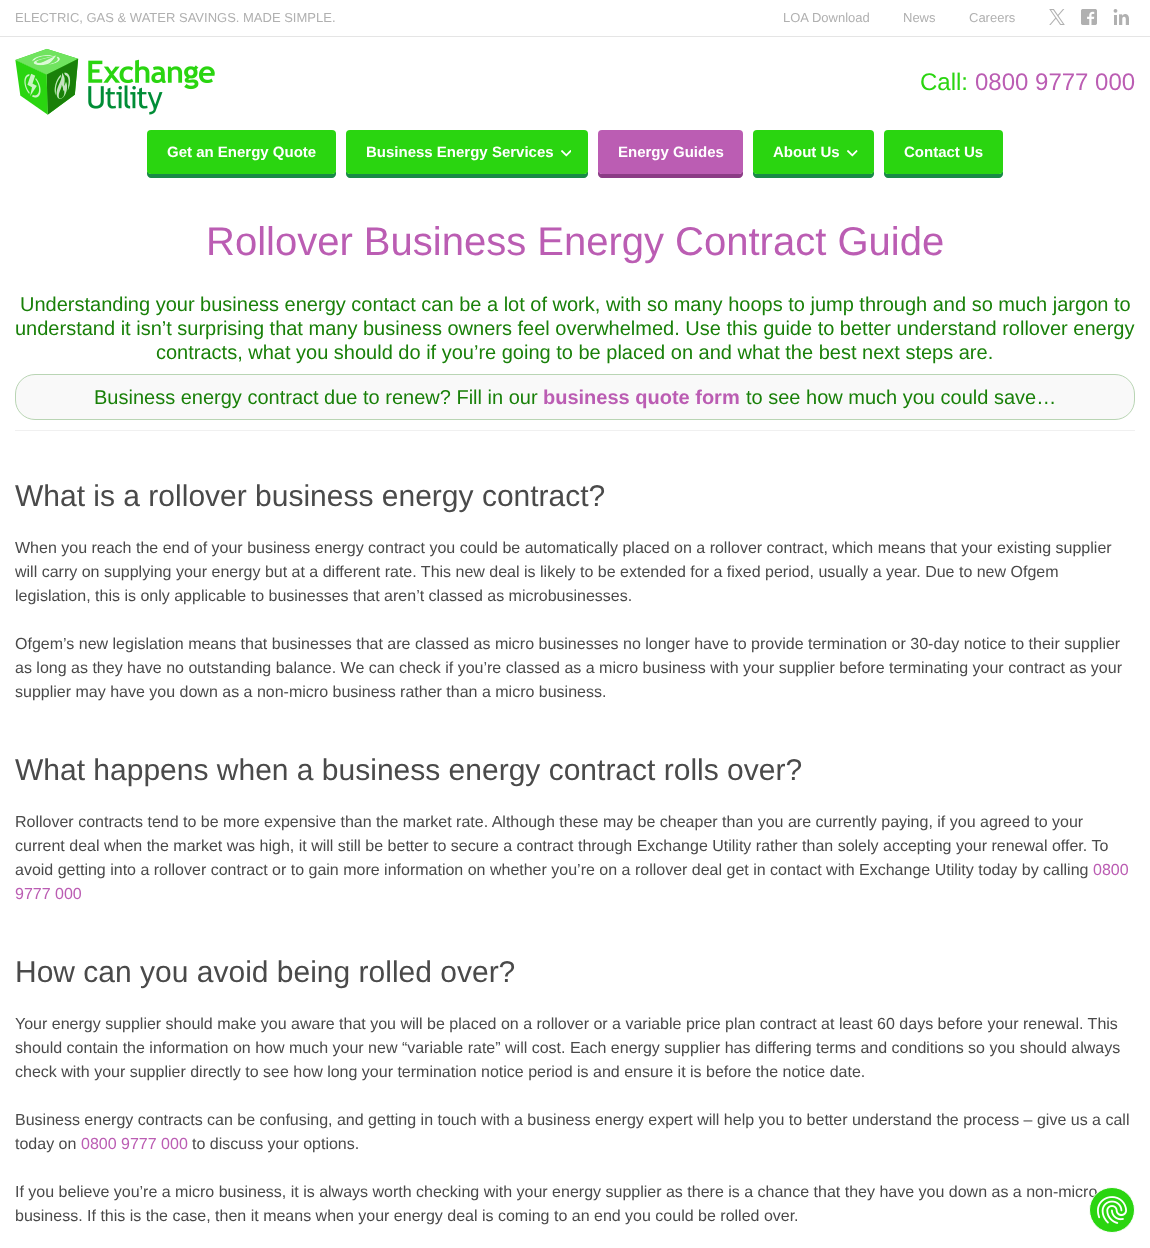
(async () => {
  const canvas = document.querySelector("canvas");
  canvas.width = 1150;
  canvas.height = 1248;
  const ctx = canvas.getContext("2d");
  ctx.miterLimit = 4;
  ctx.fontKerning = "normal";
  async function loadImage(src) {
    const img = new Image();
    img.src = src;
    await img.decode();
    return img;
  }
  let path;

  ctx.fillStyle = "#ffffff";
  ctx.fillRect(0, 0, 1150, 1248);
  ctx.fillStyle = "#e5e5e5";
  ctx.fillRect(0, 36, 1150, 1);
  ctx.drawImage(await loadImage("img/1.png"), 1049, 9, 16, 16);
  ctx.drawImage(await loadImage("img/2.png"), 1081, 9, 16, 16);
  ctx.drawImage(await loadImage("img/3.png"), 1113, 9, 16, 16);
  ctx.drawImage(await loadImage("img/4.png"), 15, 48, 200, 67);
  ctx.fillStyle = "#198a46";
  path = new Path2D("M147 170V174C147 176 149 178 151 178H332C334 178 336 176 336 174V170C336 172 334 174 332 174H151C149 174 147 172 147 170Z");
  ctx.fill(path);
  ctx.fillStyle = "#2ad510";
  ctx.beginPath();
  ctx.roundRect(147, 130, 189, 44, 4);
  ctx.fill();
  ctx.fillStyle = "#198a46";
  path = new Path2D("M346 170V174C346 176 348 178 350 178H584C586 178 588 176 588 174V170C588 172 586 174 584 174H350C348 174 346 172 346 170Z");
  ctx.fill(path);
  ctx.fillStyle = "#2ad510";
  ctx.beginPath();
  ctx.roundRect(346, 130, 242, 44, 4);
  ctx.fill();
  ctx.drawImage(await loadImage("img/5.png"), 561, 150, 10, 7);
  ctx.fillStyle = "#8b3c85";
  path = new Path2D("M598 170V174C598 176 600 178 602 178H739C741 178 743 176 743 174V170C743 172 741 174 739 174H602C600 174 598 172 598 170Z");
  ctx.fill(path);
  ctx.fillStyle = "#bb5db3";
  ctx.beginPath();
  ctx.roundRect(598, 130, 145, 44, 4);
  ctx.fill();
  ctx.fillStyle = "#198a46";
  path = new Path2D("M753 170V174C753 176 755 178 757 178H870C872 178 874 176 874 174V170C874 172 872 174 870 174H757C755 174 753 172 753 170Z");
  ctx.fill(path);
  ctx.fillStyle = "#2ad510";
  ctx.beginPath();
  ctx.roundRect(753, 130, 121, 44, 4);
  ctx.fill();
  ctx.drawImage(await loadImage("img/6.png"), 847, 150, 11, 7);
  ctx.fillStyle = "#198a46";
  path = new Path2D("M884 170V174C884 176 886 178 888 178H999C1001 178 1003 176 1003 174V170C1003 172 1001 174 999 174H888C886 174 884 172 884 170Z");
  ctx.fill(path);
  ctx.fillStyle = "#2ad510";
  ctx.beginPath();
  ctx.roundRect(884, 130, 119, 44, 4);
  ctx.fill();
  ctx.fillStyle = "#f9f9f9";
  ctx.beginPath();
  ctx.roundRect(15.5, 374.5, 1119, 45, 19.5);
  ctx.fill();
  ctx.strokeStyle = "#b9d5b4";
  ctx.stroke();
  ctx.fillStyle = "#f0f0f0";
  ctx.fillRect(15, 430, 1120, 1);
  ctx.font = "13px Liberation Sans";
  ctx.fillStyle = "#b0b0b0";
  for (const [text, x, y] of [
    ["ELECTRIC, GAS & WATER SAVINGS. MADE SIMPLE.", 15, 22],
    ["LOA Download", 783, 22],
    ["News", 903, 22],
    ["Careers", 969, 22],
  ]) {
    ctx.fillText(text, x, y);
  }
  ctx.font = "24px Liberation Sans";
  ctx.fillStyle = "#2ad510";
  ctx.fillText("Call:", 920, 90);
  ctx.fillStyle = "#bb5db3";
  ctx.fillText("0800 9777 000", 975, 90);
  ctx.font = "bold 15px Liberation Sans";
  ctx.fillStyle = "#ffffff";
  for (const [text, x, y] of [
    ["Get an Energy Quote", 167, 157],
    ["Business Energy Services", 366, 157],
    ["Energy Guides", 618, 157],
    ["About Us", 773, 157],
    ["Contact Us", 904, 157],
  ]) {
    ctx.fillText(text, x, y);
  }
  ctx.font = "40px Liberation Sans";
  ctx.fillStyle = "#bb5db3";
  ctx.fillText("Rollover Business Energy Contract Guide", 206, 255);
  ctx.font = "20px Liberation Sans";
  ctx.fillStyle = "#198009";
  for (const [text, x, y] of [
    ["Understanding your business energy contact can be a lot of work, with so many hoops to jump through and so much jargon to", 20, 311],
    ["understand it isn’t surprising that many business owners feel overwhelmed. Use this guide to better understand rollover energy", 15, 335],
    ["contracts, what you should do if you’re going to be placed on and what the best next steps are.", 156, 359],
    ["Business energy contract due to renew? Fill in our", 94, 404],
  ]) {
    ctx.fillText(text, x, y);
  }
  ctx.font = "bold 20px Liberation Sans";
  ctx.fillStyle = "#bb5db3";
  ctx.fillText("business quote form", 543, 404);
  ctx.font = "20px Liberation Sans";
  ctx.fillStyle = "#198009";
  ctx.fillText("to see how much you could save…", 746, 404);
  ctx.font = "30px Liberation Sans";
  ctx.fillStyle = "#4a4a4a";
  ctx.fillText("What is a rollover business energy contract?", 15, 506);
  ctx.font = "16px Liberation Sans";
  for (const [text, x, y] of [
    ["When you reach the end of your business energy contract you could be automatically placed on a rollover contract, which means that your existing supplier", 15, 553],
    ["will carry on supplying your energy but at a different rate. This new deal is likely to be extended for a fixed period, usually a year. Due to new Ofgem", 15, 577],
    ["legislation, this is only applicable to businesses that aren’t classed as microbusinesses.", 15, 601],
    ["Ofgem’s new legislation means that businesses that are classed as micro businesses no longer have to provide termination or 30-day notice to their supplier", 15, 649],
    ["as long as they have no outstanding balance. We can check if you’re classed as a micro business with your supplier before terminating your contract as your", 15, 673],
    ["supplier may have you down as a non-micro business rather than a micro business.", 15, 697],
  ]) {
    ctx.fillText(text, x, y);
  }
  ctx.font = "30px Liberation Sans";
  ctx.fillText("What happens when a business energy contract rolls over?", 15, 780);
  ctx.font = "16px Liberation Sans";
  for (const [text, x, y] of [
    ["Rollover contracts tend to be more expensive than the market rate. Although these may be cheaper than you are currently paying, if you agreed to your", 15, 827],
    ["current deal when the market was high, it will still be better to secure a contract through Exchange Utility rather than solely accepting your renewal offer. To", 15, 851],
    ["avoid getting into a rollover contract or to gain more information on whether you’re on a rollover deal get in contact with Exchange Utility today by calling", 15, 875],
  ]) {
    ctx.fillText(text, x, y);
  }
  ctx.fillStyle = "#bb5db3";
  ctx.fillText("0800", 1093, 875);
  ctx.fillText("9777 000", 15, 899);
  ctx.font = "30px Liberation Sans";
  ctx.fillStyle = "#4a4a4a";
  ctx.fillText("How can you avoid being rolled over?", 15, 982);
  ctx.font = "16px Liberation Sans";
  for (const [text, x, y] of [
    ["Your energy supplier should make you aware that you will be placed on a rollover or a variable price plan contract at least 60 days before your renewal. This", 15, 1029],
    ["should contain the information on how much your new “variable rate” will cost. Each energy supplier has differing terms and conditions so you should always", 15, 1053],
    ["check with your supplier directly to see how long your termination notice period is and ensure it is before the notice date.", 15, 1077],
    ["Business energy contracts can be confusing, and getting in touch with a business energy expert will help you to better understand the process – give us a call", 15, 1125],
    ["today on", 15, 1149],
  ]) {
    ctx.fillText(text, x, y);
  }
  ctx.fillStyle = "#bb5db3";
  ctx.fillText("0800 9777 000", 81, 1149);
  ctx.fillStyle = "#4a4a4a";
  for (const [text, x, y] of [
    ["to discuss your options.", 192, 1149],
    ["If you believe you’re a micro business, it is always worth checking with your energy supplier as there is a chance that they have you down as a non-micro", 15, 1197],
    ["business. If this is the case, then it means when your energy deal is coming to an end you could be rolled over.", 15, 1221],
  ]) {
    ctx.fillText(text, x, y);
  }
  ctx.fillStyle = "#2ad510";
  ctx.beginPath();
  ctx.arc(1112, 1210, 22.5, 0, Math.PI * 2);
  ctx.fill();
  ctx.strokeStyle = "#fdfdfd";
  ctx.stroke();
  ctx.drawImage(await loadImage("img/7.png"), 1097, 1196, 30, 28);
})();
